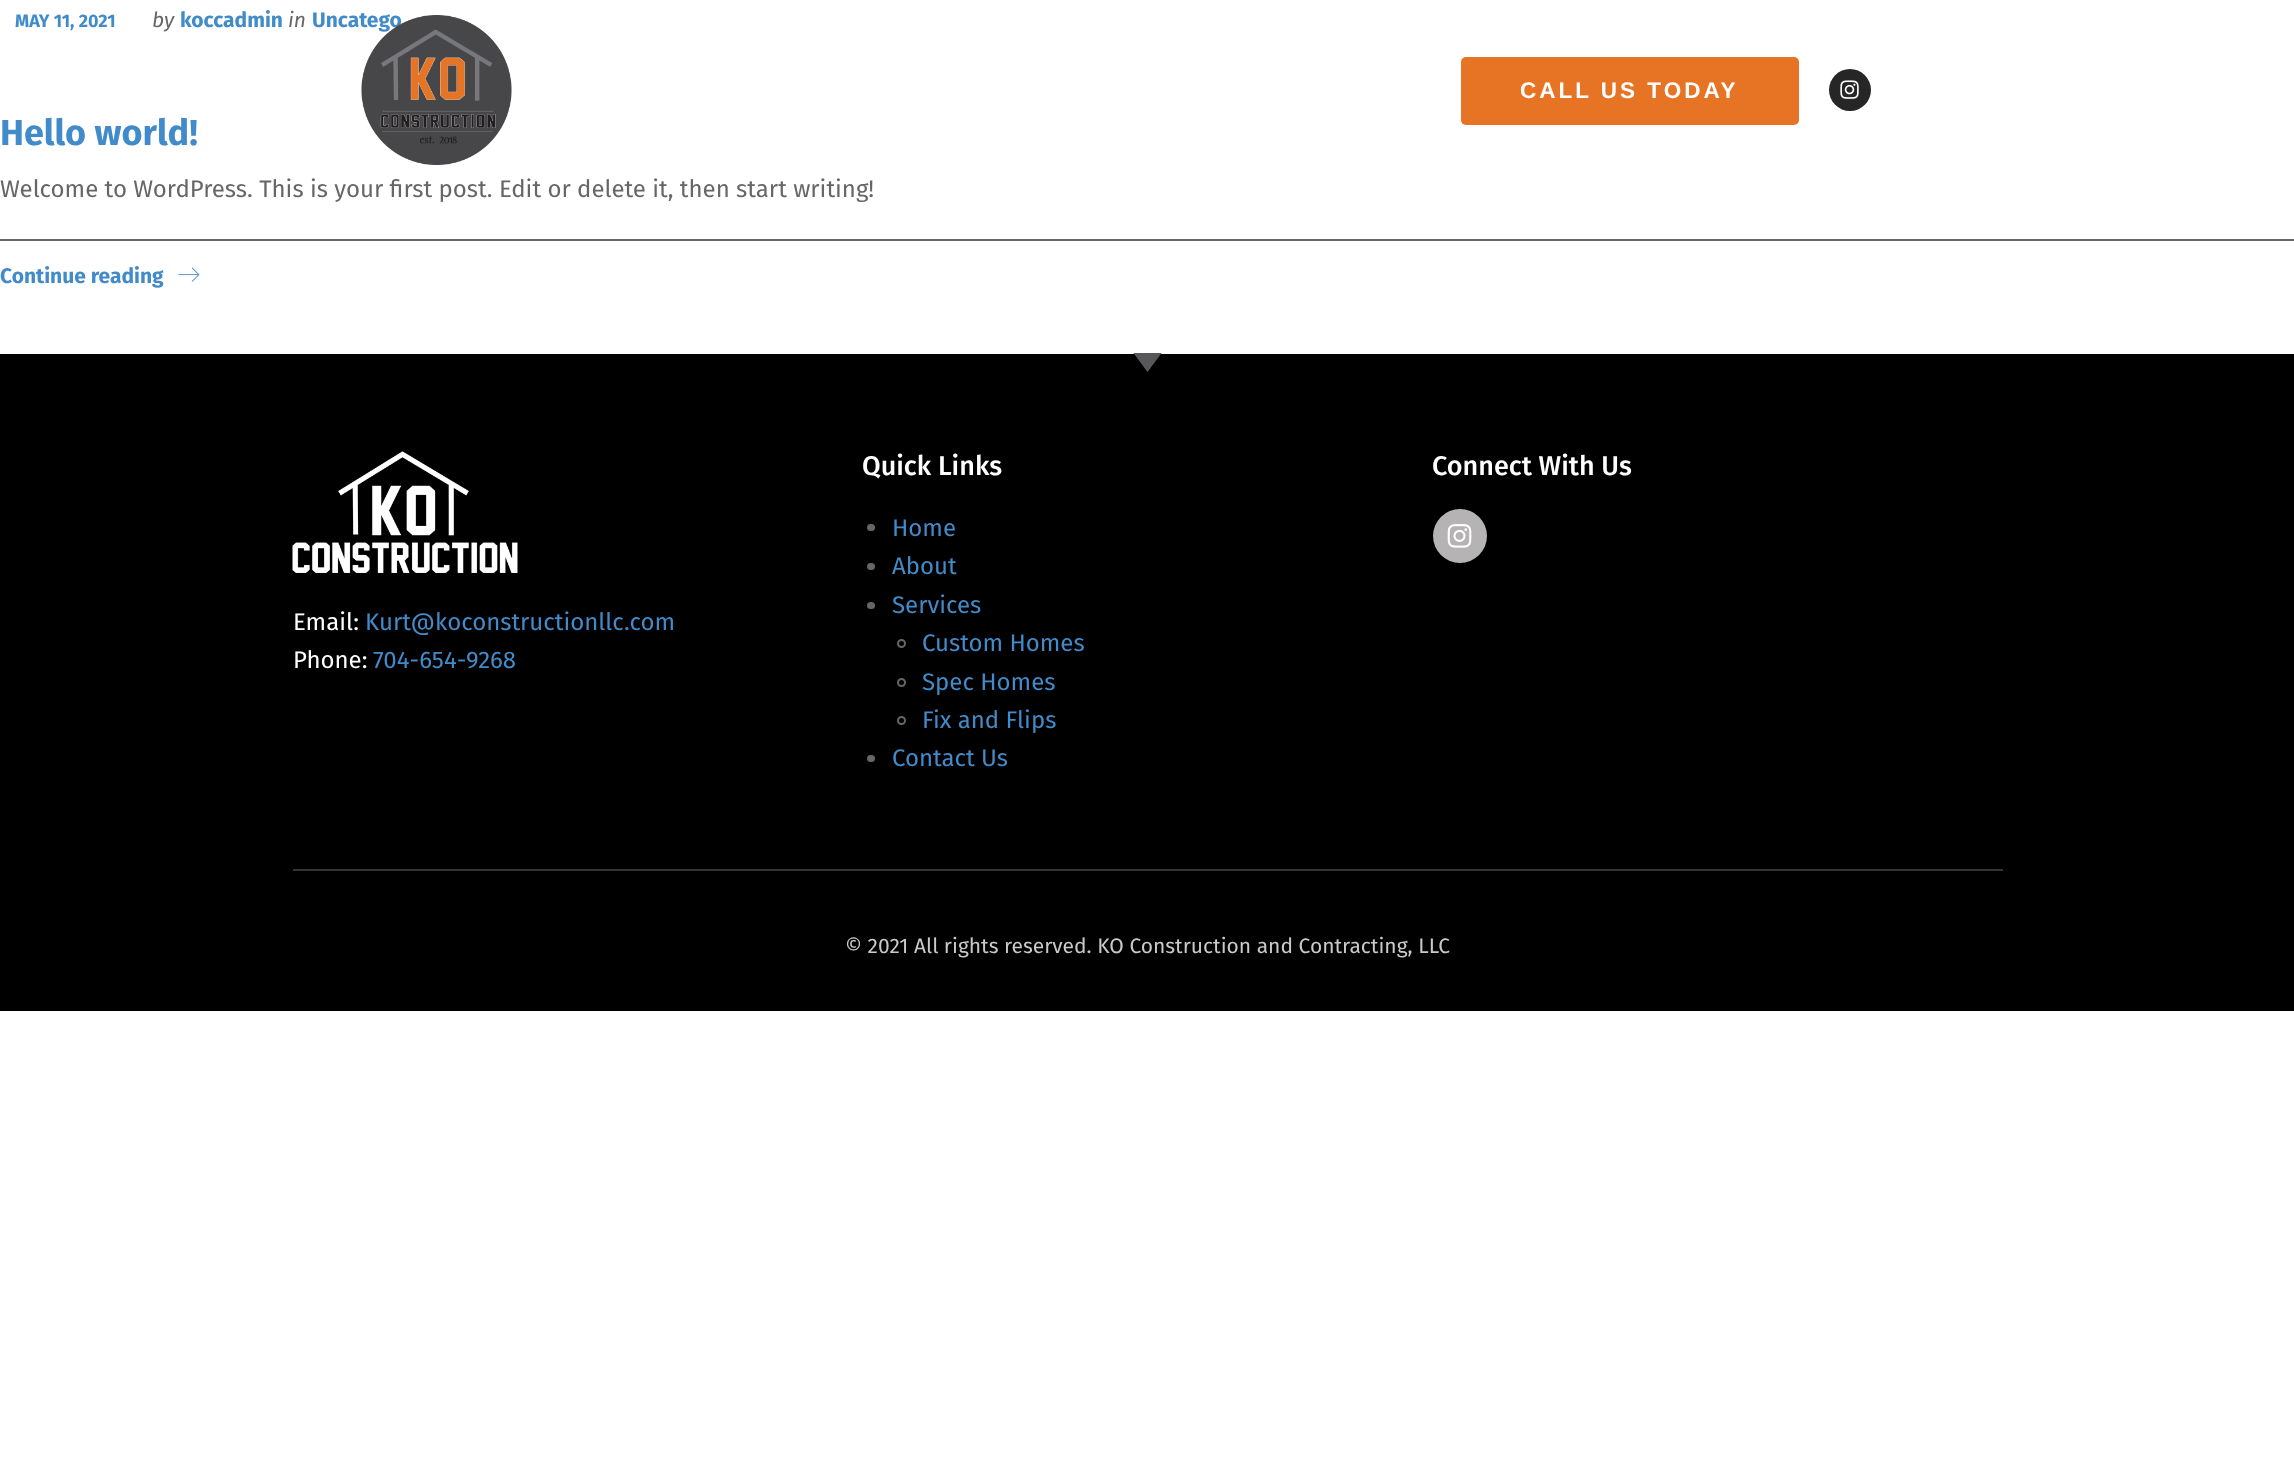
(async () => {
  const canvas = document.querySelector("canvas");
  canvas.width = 2294;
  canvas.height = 1470;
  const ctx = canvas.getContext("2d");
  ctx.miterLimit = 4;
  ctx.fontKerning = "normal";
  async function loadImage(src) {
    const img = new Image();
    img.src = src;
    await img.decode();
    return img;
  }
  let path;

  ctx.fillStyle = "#ffffff";
  ctx.fillRect(0, 0, 2294, 1470);
  ctx.fillStyle = "#666666";
  ctx.fillRect(0, 239, 2294, 2);
  ctx.drawImage(await loadImage("img/1.png"), 178, 267, 22, 15);
  ctx.fillStyle = "#e77424";
  ctx.beginPath();
  ctx.roundRect(1461, 57, 338, 68, 5);
  ctx.fill();
  ctx.fillStyle = "#262626";
  ctx.beginPath();
  ctx.arc(1850, 90, 21, 0, Math.PI * 2);
  ctx.fill();
  ctx.drawImage(await loadImage("img/3.png"), 1840, 80, 19, 19);
  ctx.fillStyle = "#000000";
  ctx.fillRect(0, 354, 2294, 657);
  ctx.save();
  ctx.beginPath();
  ctx.rect(633, 353, 1028, 19);
  ctx.clip();
  ctx.fillStyle = "#58585a";
  path = new Path2D("M1147.5 372L1133 352.5H1162Z");
  ctx.fill(path);
  ctx.restore();
  ctx.fillStyle = "#666666";
  ctx.beginPath();
  ctx.roundRect(867, 524, 8, 7, 3.5);
  ctx.fill();
  ctx.beginPath();
  ctx.roundRect(867, 563, 8, 7, 3.5);
  ctx.fill();
  ctx.beginPath();
  ctx.roundRect(867, 602, 8, 7, 3.5);
  ctx.fill();
  ctx.beginPath();
  ctx.arc(901.5, 643.5, 3.5, 0, Math.PI * 2);
  ctx.strokeStyle = "#666666";
  ctx.lineWidth = 2;
  ctx.stroke();
  ctx.beginPath();
  ctx.arc(901.5, 682.5, 3.5, 0, Math.PI * 2);
  ctx.stroke();
  ctx.beginPath();
  ctx.arc(901.5, 720.5, 3.5, 0, Math.PI * 2);
  ctx.stroke();
  ctx.beginPath();
  ctx.roundRect(867, 755, 8, 7, 3.5);
  ctx.fill();
  ctx.fillStyle = "#b5b3b3";
  ctx.beginPath();
  ctx.arc(1460, 536, 27, 0, Math.PI * 2);
  ctx.fill();
  ctx.drawImage(await loadImage("img/4.png"), 1447, 524, 25, 24);
  ctx.drawImage(await loadImage("img/5.png"), 292, 451, 226, 122);
  ctx.fillStyle = "#363636";
  ctx.fillRect(293, 869, 1710, 2);
  ctx.font = "bold 18px Fira Sans";
  ctx.fillStyle = "#428bca";
  ctx.fillText("MAY 11, 2021", 15, 27);
  ctx.font = "italic 21px Fira Sans";
  ctx.fillStyle = "#666666";
  ctx.fillText("by", 152, 27);
  ctx.font = "bold 21px Fira Sans";
  ctx.fillStyle = "#428bca";
  ctx.fillText("koccadmin", 180, 27);
  ctx.font = "italic 21px Fira Sans";
  ctx.fillStyle = "#666666";
  ctx.fillText("in", 288, 27);
  ctx.font = "bold 21px Fira Sans";
  ctx.fillStyle = "#428bca";
  ctx.fillText("Uncatego", 312, 27);
  ctx.font = "bold 36px Fira Sans";
  ctx.fillText("Hello world!", 0, 145);
  ctx.font = "24px Fira Sans";
  ctx.fillStyle = "#666666";
  ctx.fillText("Welcome to WordPress. This is your first post. Edit or delete it, then start writing!", 0, 197);
  ctx.font = "bold 21px Fira Sans";
  ctx.fillStyle = "#428bca";
  ctx.fillText("Continue reading", 0, 283);
  ctx.drawImage(await loadImage("img/2.png"), 361, 15, 151, 150);
  ctx.letterSpacing = "3px";
  ctx.font = "bold 22.5px Liberation Sans";
  ctx.fillStyle = "#ffffff";
  ctx.fillText("CALL US TODAY", 1520, 98);
  ctx.letterSpacing = "0px";
  ctx.font = "500 27px Fira Sans";
  ctx.fillText("Quick Links", 862, 475);
  ctx.font = "24px Fira Sans";
  ctx.fillStyle = "#428bca";
  for (const [text, x, y] of [
    ["Home", 892, 536],
    ["About", 892, 574],
    ["Services", 892, 613],
    ["Custom Homes", 922, 651],
    ["Spec Homes", 922, 690],
    ["Fix and Flips", 922, 728],
    ["Contact Us", 892, 766],
  ]) {
    ctx.fillText(text, x, y);
  }
  ctx.font = "500 27px Fira Sans";
  ctx.fillStyle = "#ffffff";
  ctx.fillText("Connect With Us", 1432, 475);
  ctx.font = "24px Fira Sans";
  ctx.fillText("Email:", 293, 630);
  ctx.fillStyle = "#428bca";
  ctx.fillText("Kurt@koconstructionllc.com", 365, 630);
  ctx.fillStyle = "#ffffff";
  ctx.fillText("Phone:", 293, 668);
  ctx.fillStyle = "#428bca";
  ctx.fillText("704-654-9268", 373, 668);
  ctx.font = "21px Fira Sans";
  ctx.fillStyle = "#c9c9c9";
  ctx.fillText("© 2021 All rights reserved. KO Construction and Contracting, LLC", 845, 953);
})();
